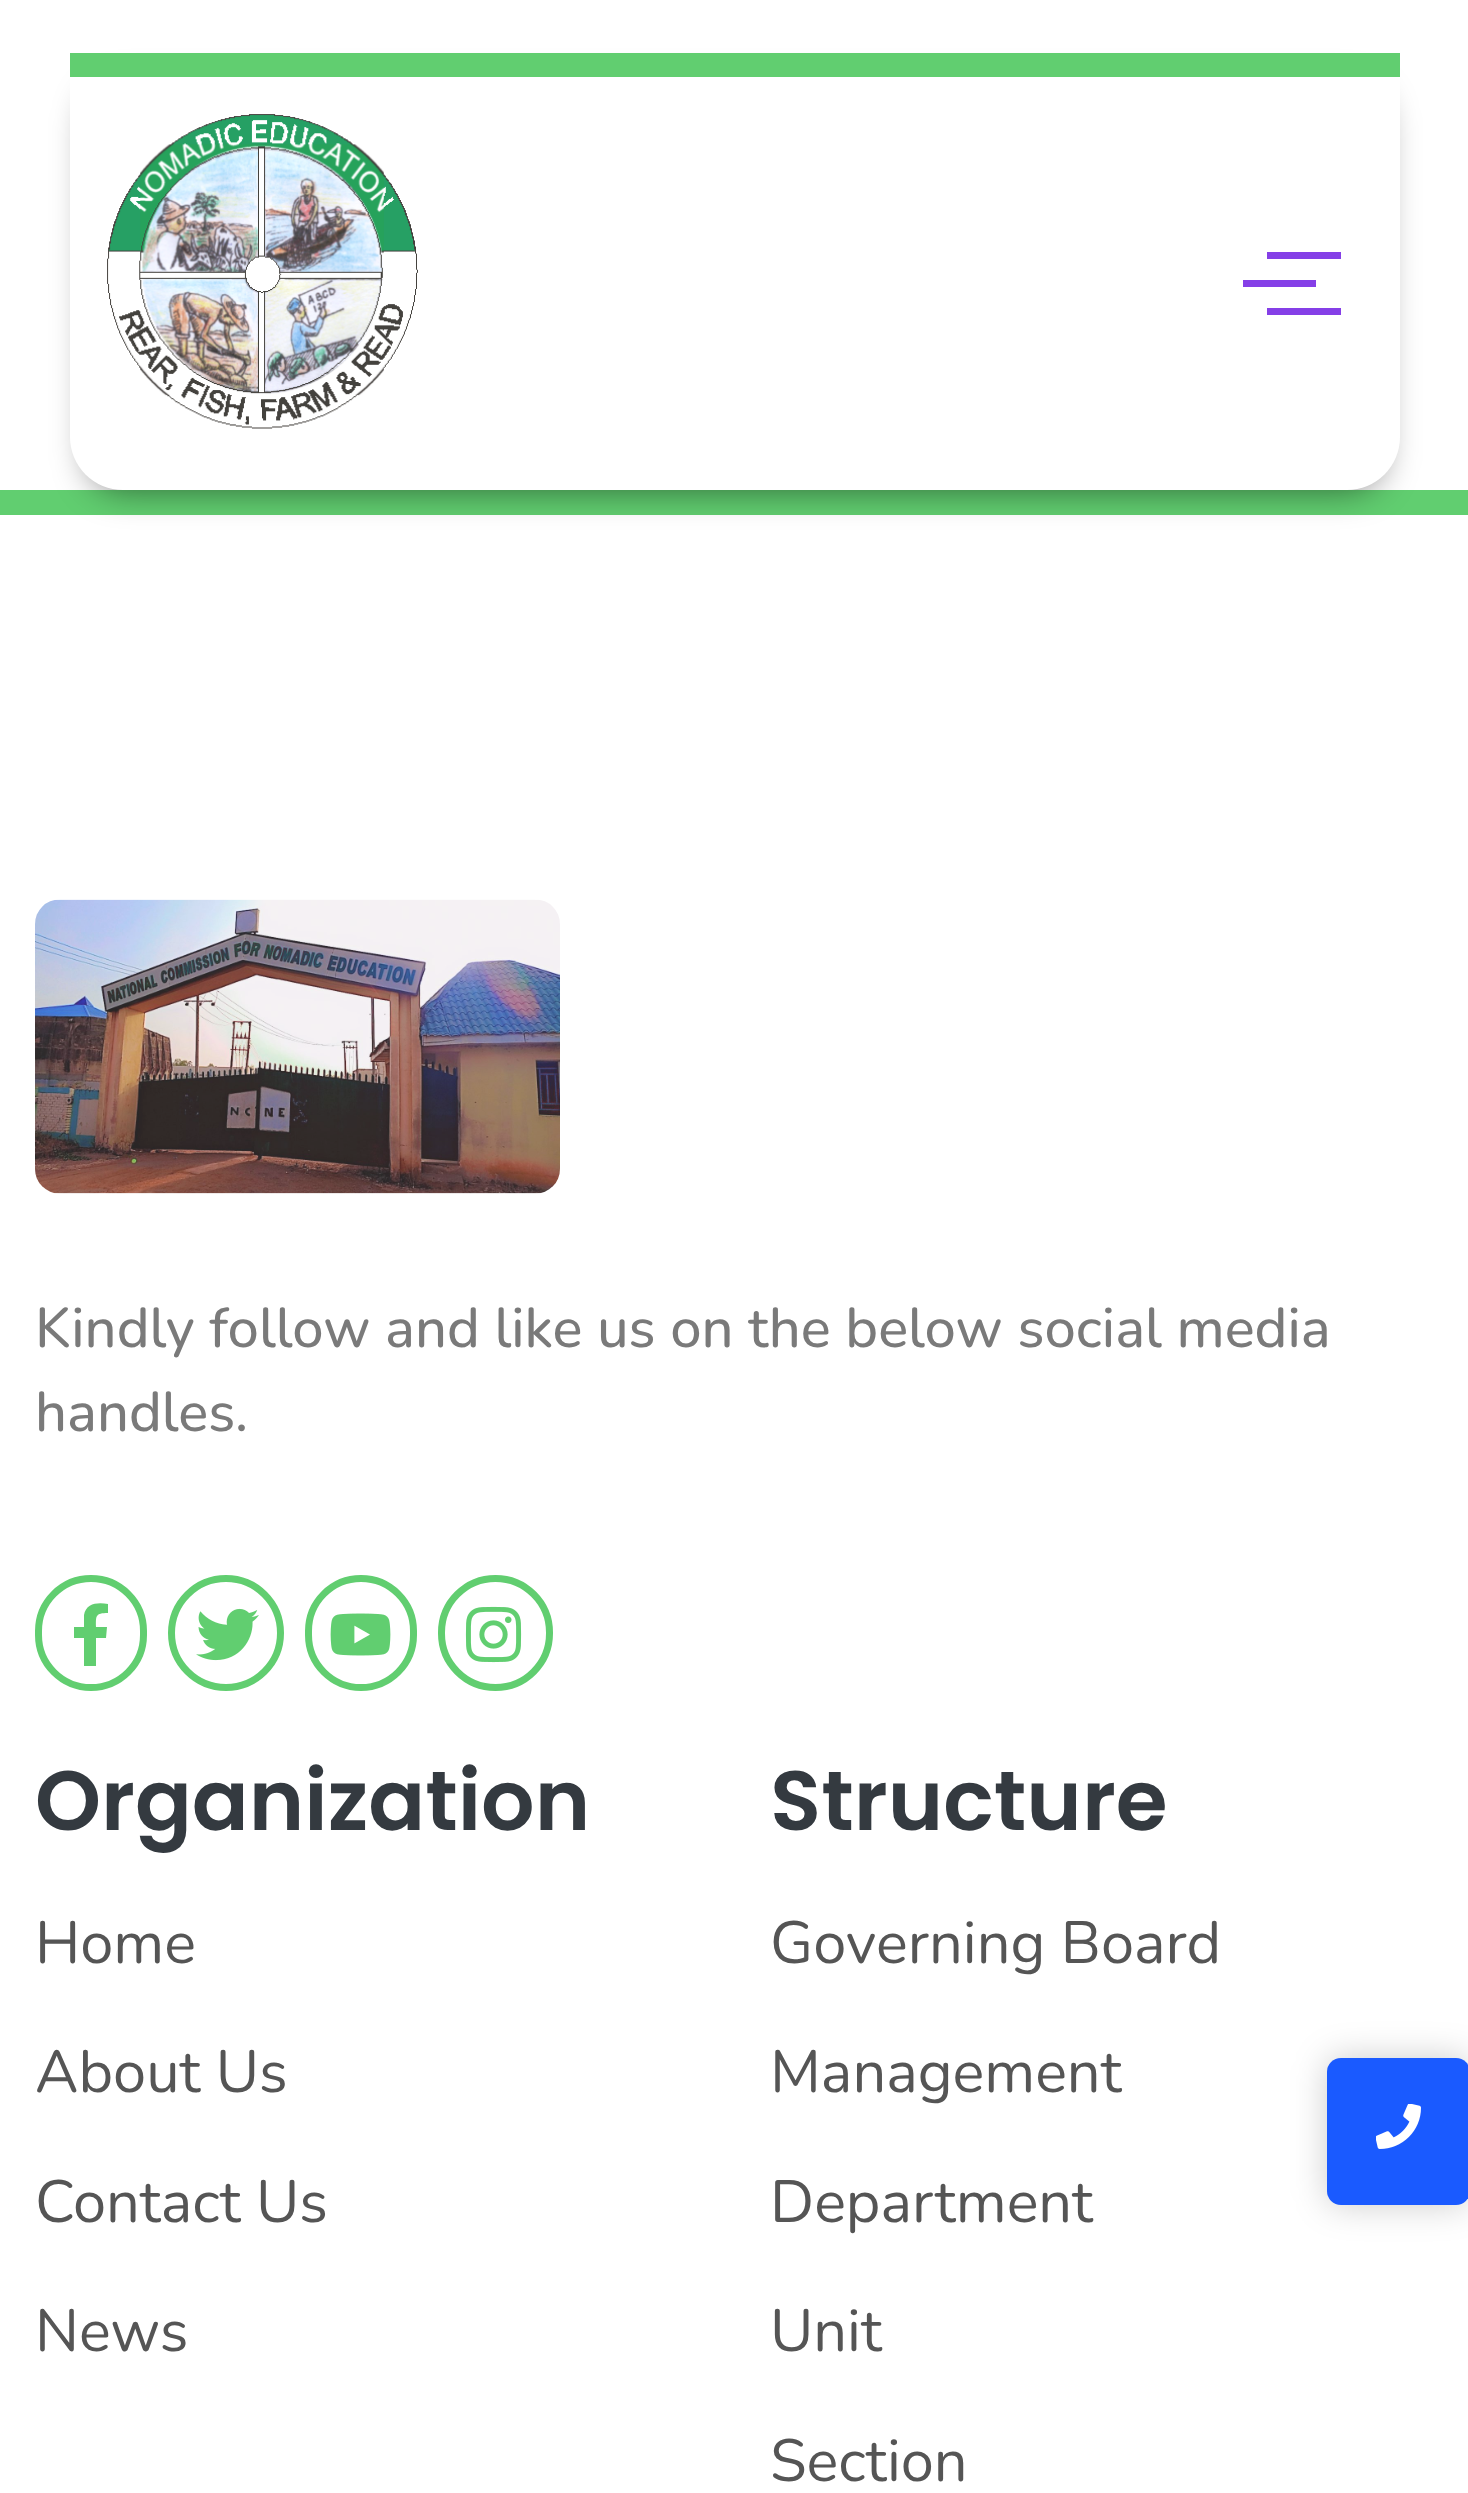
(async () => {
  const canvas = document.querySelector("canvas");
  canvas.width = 1468;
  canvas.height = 2493;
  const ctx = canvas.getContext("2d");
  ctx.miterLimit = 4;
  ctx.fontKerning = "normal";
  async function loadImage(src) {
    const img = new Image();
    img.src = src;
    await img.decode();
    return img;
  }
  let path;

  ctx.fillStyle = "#ffffff";
  ctx.fillRect(0, 0, 1468, 2493);
  ctx.fillStyle = "#61ce70";
  ctx.fillRect(0, 490, 1468, 25);
  ctx.fillStyle = "rgba(0, 0, 0, 0.5)";
  ctx.filter = "blur(17.5px)";
  ctx.beginPath();
  ctx.roundRect(88, 88, 1295, 402, 35);
  ctx.fill();
  ctx.filter = "none";
  ctx.fillStyle = "#ffffff";
  ctx.beginPath();
  ctx.roundRect(70, 77, 1330, 413, [0, 0, 53, 53]);
  ctx.fill();
  ctx.fillStyle = "#61ce70";
  ctx.fillRect(70, 53, 1330, 24);
  ctx.drawImage(await loadImage("img/1.png"), 107, 114, 311, 315);
  for (const [x, y, w, h, color] of [
    [1267, 252, 74, 7, "#853fe7"],
    [1243, 280, 73, 7, "#853fe7"],
    [1267, 308, 74, 7, "#853fe7"],
  ]) {
    ctx.fillStyle = color;
    ctx.fillRect(x, y, w, h);
  }
  ctx.drawImage(await loadImage("img/2.png"), 35, 899, 525, 295);
  ctx.beginPath();
  ctx.roundRect(38.5, 1578.5, 105, 109, 52.5);
  ctx.strokeStyle = "#61ce70";
  ctx.lineWidth = 7;
  ctx.stroke();
  ctx.fillStyle = "#61ce70";
  path = new Path2D("M106 1638L107 1627H96C96 1616 95 1613 108 1613V1604C98 1602 86 1603 84 1615V1627H74V1638H84V1666H96V1638Z");
  ctx.fill(path);
  ctx.beginPath();
  ctx.arc(226, 1633, 54.5, 0, Math.PI * 2);
  ctx.stroke();
  ctx.drawImage(await loadImage("img/3.png"), 196, 1608, 63, 53);
  ctx.beginPath();
  ctx.roundRect(308.5, 1578.5, 105, 109, 52.5);
  ctx.stroke();
  ctx.drawImage(await loadImage("img/4.png"), 330, 1613, 61, 43);
  ctx.beginPath();
  ctx.roundRect(441.5, 1578.5, 108, 109, 54);
  ctx.stroke();
  ctx.drawImage(await loadImage("img/5.png"), 465, 1606, 57, 57);
  ctx.fillStyle = "rgba(0, 0, 0, 0.2)";
  ctx.filter = "blur(17.5px)";
  ctx.beginPath();
  ctx.roundRect(1327, 2058, 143, 147, 14);
  ctx.fill();
  ctx.filter = "none";
  ctx.fillStyle = "#1a5aff";
  ctx.beginPath();
  ctx.roundRect(1327, 2058, 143, 147, 14);
  ctx.fill();
  ctx.drawImage(await loadImage("img/6.png"), 1376, 2104, 45, 45);
  ctx.font = "500 56px Nunito";
  ctx.fillStyle = "#7a7a7a";
  ctx.fillText("Kindly follow and like us on the below social media", 35, 1347);
  ctx.fillText("handles.", 35, 1431);
  ctx.font = "600 84px Poppins";
  ctx.fillStyle = "#343a40";
  ctx.fillText("Organization", 35, 1830);
  ctx.font = "59.5px Nunito";
  ctx.fillStyle = "#555555";
  for (const [text, x, y] of [
    ["Home", 35, 1963],
    ["About Us", 35, 2092],
    ["Contact Us", 35, 2222],
    ["News", 35, 2351],
  ]) {
    ctx.fillText(text, x, y);
  }
  ctx.font = "600 84px Poppins";
  ctx.fillStyle = "#343a40";
  ctx.fillText("Structure", 770, 1830);
  ctx.font = "59.5px Nunito";
  ctx.fillStyle = "#555555";
  for (const [text, x, y] of [
    ["Governing Board", 770, 1963],
    ["Management", 770, 2092],
    ["Department", 770, 2222],
    ["Unit", 770, 2351],
    ["Section", 770, 2481],
  ]) {
    ctx.fillText(text, x, y);
  }
})();
